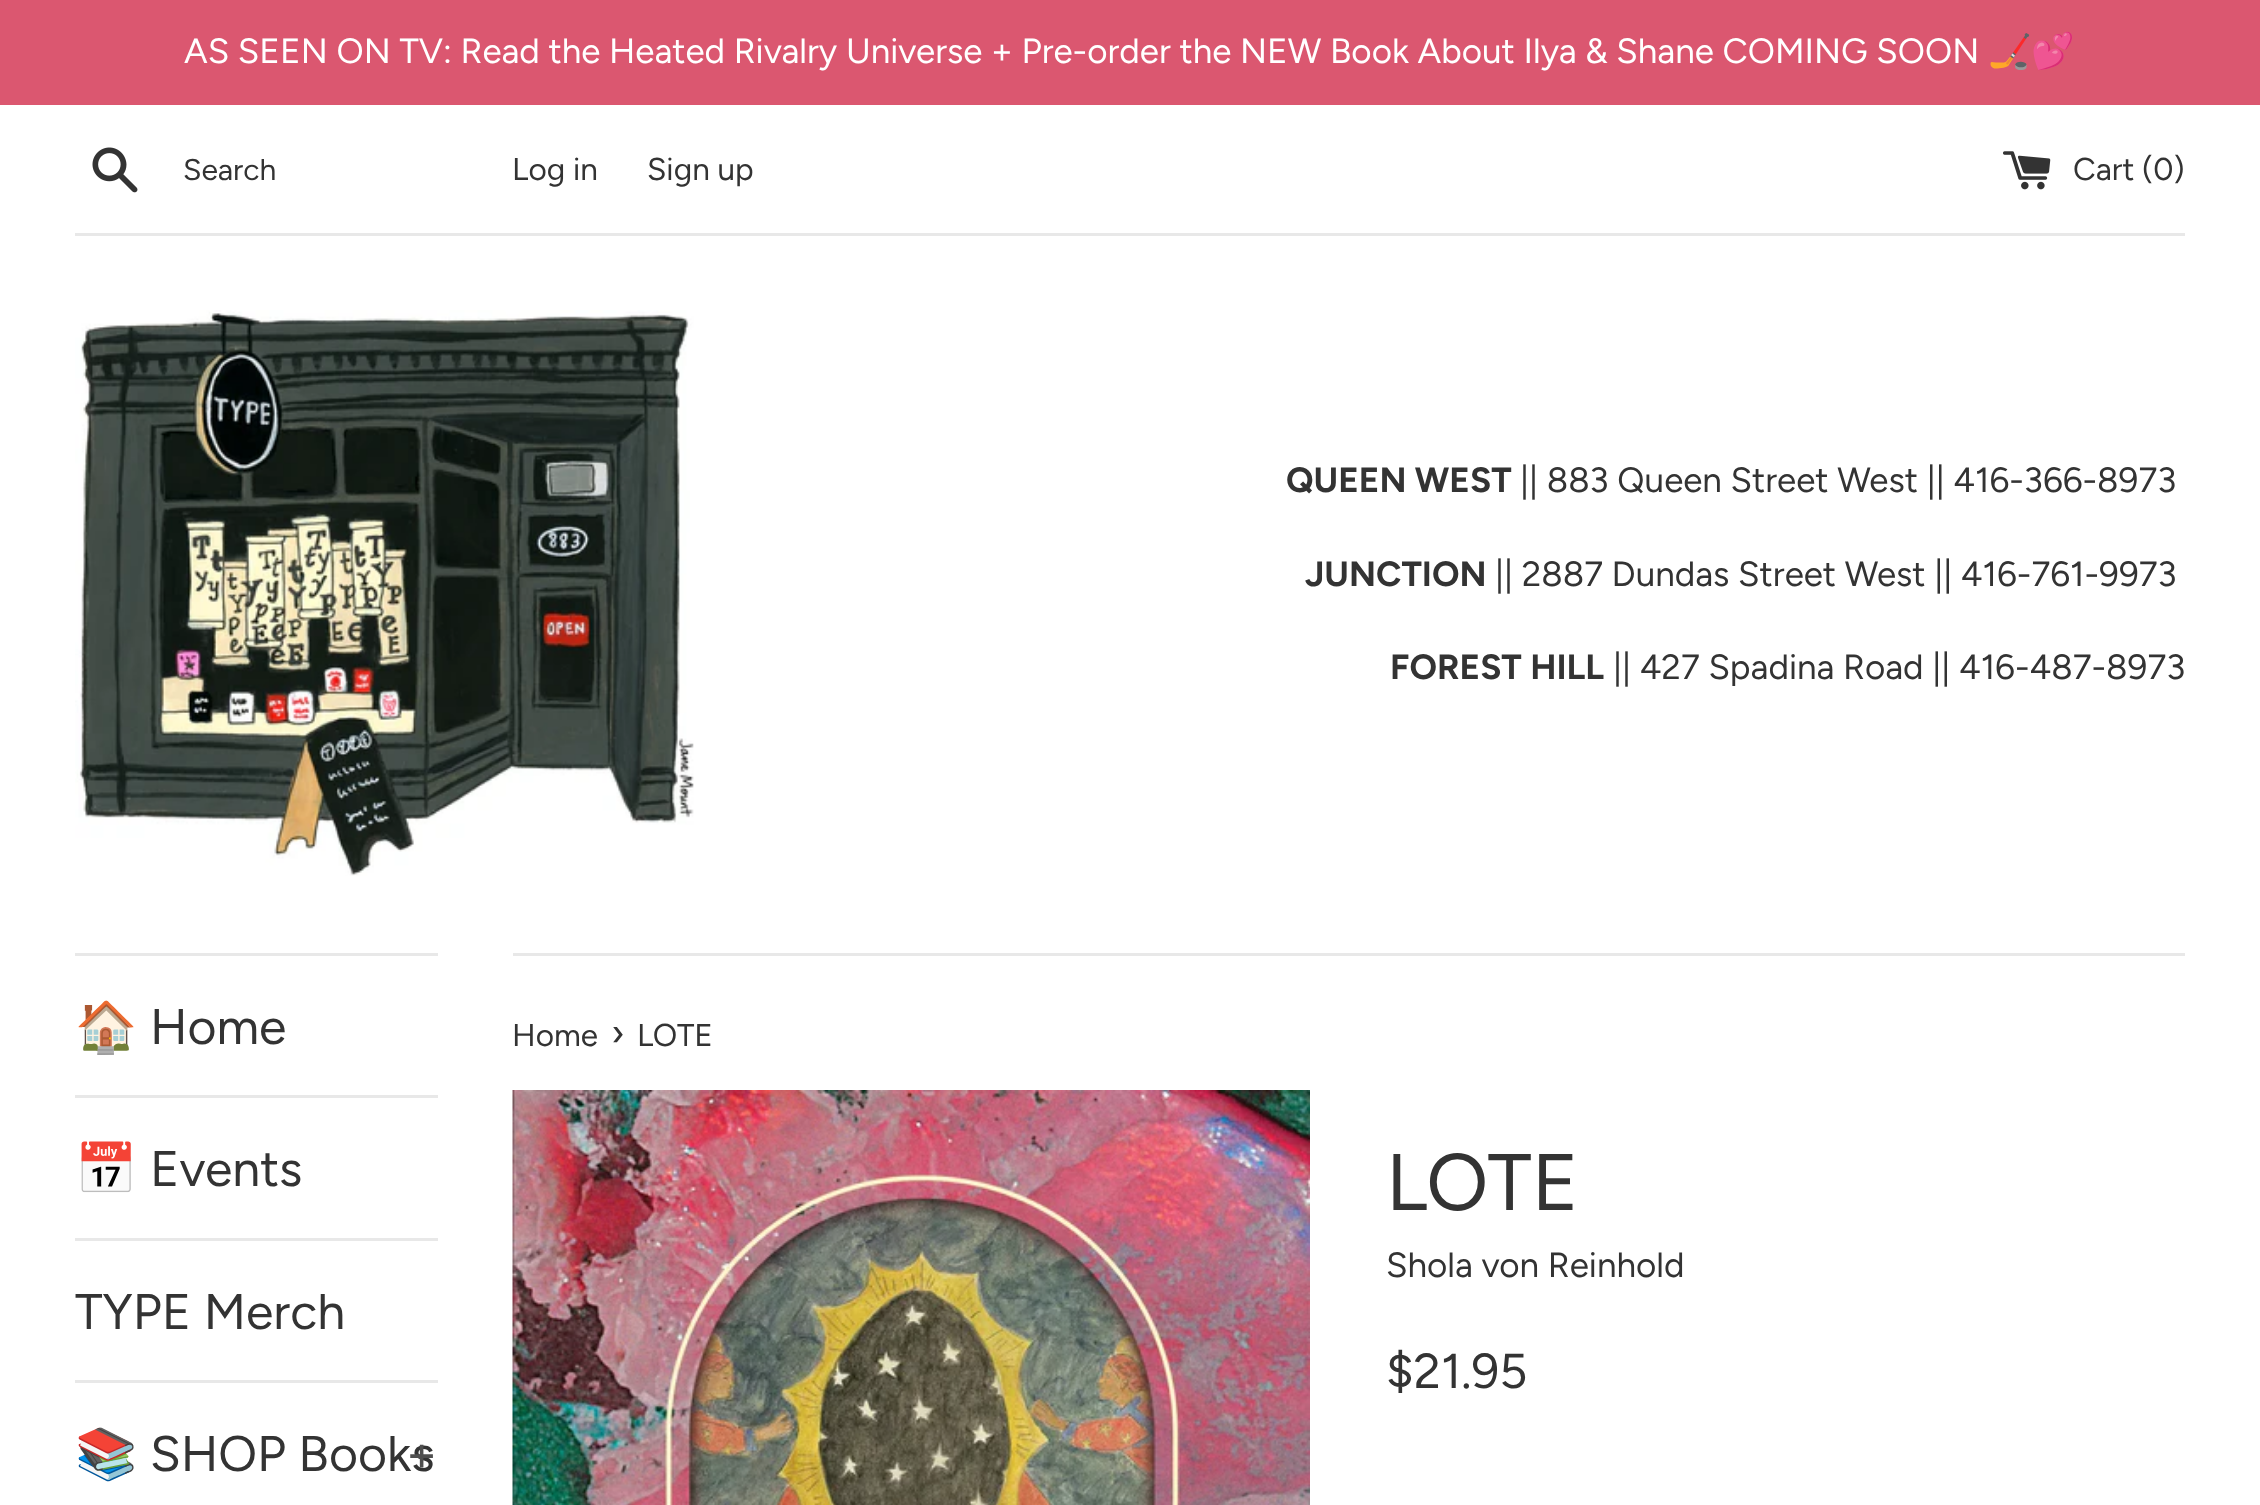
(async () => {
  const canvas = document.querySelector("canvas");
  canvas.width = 2260;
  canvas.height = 1505;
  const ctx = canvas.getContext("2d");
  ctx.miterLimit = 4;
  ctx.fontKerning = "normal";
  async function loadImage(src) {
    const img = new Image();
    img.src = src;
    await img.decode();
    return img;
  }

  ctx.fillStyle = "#ffffff";
  ctx.fillRect(0, 0, 2260, 1505);
  ctx.fillStyle = "#db5770";
  ctx.fillRect(0, 0, 2260, 105);
  ctx.drawImage(await loadImage("img/1.png"), 92, 147, 46, 46);
  ctx.drawImage(await loadImage("img/2.png"), 2003, 151, 48, 39);
  ctx.fillStyle = "#e8e8e8";
  ctx.fillRect(75, 233, 2110, 3);
  ctx.drawImage(await loadImage("img/3.png"), 75, 310, 619, 566);
  for (const [x, y, w, h, color] of [
    [75, 953, 363, 3, "#e8e8e8"],
    [75, 1095, 363, 3, "#e8e8e8"],
    [75, 1238, 363, 3, "#e8e8e8"],
    [75, 1380, 363, 3, "#e8e8e8"],
    [513, 953, 1672, 3, "#e8e8e8"],
  ]) {
    ctx.fillStyle = color;
    ctx.fillRect(x, y, w, h);
  }
  ctx.drawImage(await loadImage("img/4.png"), 512, 1090, 798, 415);
  ctx.font = "35px Figtree";
  ctx.fillStyle = "#ffffff";
  ctx.fillText("AS SEEN ON TV: Read the Heated Rivalry Universe + Pre-order the NEW Book About Ilya & Shane COMING SOON", 184, 63);
  ctx.font = "35px Noto Color Emoji";
  ctx.fillText("🏒💕", 1988, 63);
  ctx.font = "30px Figtree";
  ctx.fillStyle = "#333333";
  ctx.fillText("Search", 183, 180);
  ctx.font = "31.5px Figtree";
  for (const [text, x, y] of [
    ["Log in", 512, 180],
    ["Sign up", 647, 180],
    ["Cart (0)", 2073, 180],
  ]) {
    ctx.fillText(text, x, y);
  }
  ctx.font = "bold 35px Figtree";
  ctx.fillText("QUEEN WEST", 1286, 492);
  ctx.font = "35px Figtree";
  ctx.fillText("|| 883 Queen Street West || 416-366-8973", 1520, 492);
  ctx.font = "bold 35px Figtree";
  ctx.fillText("JUNCTION", 1305, 586);
  ctx.font = "35px Figtree";
  ctx.fillText("|| 2887 Dundas Street West || 416-761-9973", 1495, 586);
  ctx.font = "bold 35px Figtree";
  ctx.fillText("FOREST HILL", 1390, 679);
  ctx.font = "35px Figtree";
  ctx.fillText("|| 427 Spadina Road || 416-487-8973", 1613, 679);
  ctx.font = "50px Noto Color Emoji";
  ctx.fillText("🏠", 75, 1044);
  ctx.font = "50px Figtree";
  ctx.fillText("Home", 150, 1044);
  ctx.font = "50px Noto Color Emoji";
  ctx.fillText("📅", 75, 1186);
  ctx.font = "50px Figtree";
  ctx.fillText("Events", 150, 1186);
  ctx.fillText("TYPE Merch", 75, 1329);
  ctx.font = "50px Noto Color Emoji";
  ctx.fillText("📚", 75, 1471);
  ctx.font = "50px Figtree";
  ctx.fillText("SHOP Books", 150, 1471);
  ctx.fillStyle = "#4f4f4f";
  ctx.fillText("+", 406, 1471);
  ctx.font = "31.5px Figtree";
  ctx.fillStyle = "#333333";
  ctx.fillText("Home", 512, 1046);
  ctx.font = "38px Figtree";
  ctx.fillText("›", 611, 1046);
  ctx.font = "31.5px Figtree";
  ctx.fillText("LOTE", 637, 1046);
  ctx.font = "80px Figtree";
  ctx.fillText("LOTE", 1386, 1210);
  ctx.font = "35px Figtree";
  ctx.fillText("Shola von Reinhold", 1386, 1277);
  ctx.font = "49px Figtree";
  ctx.fillText("$21.95", 1386, 1388);
})();
